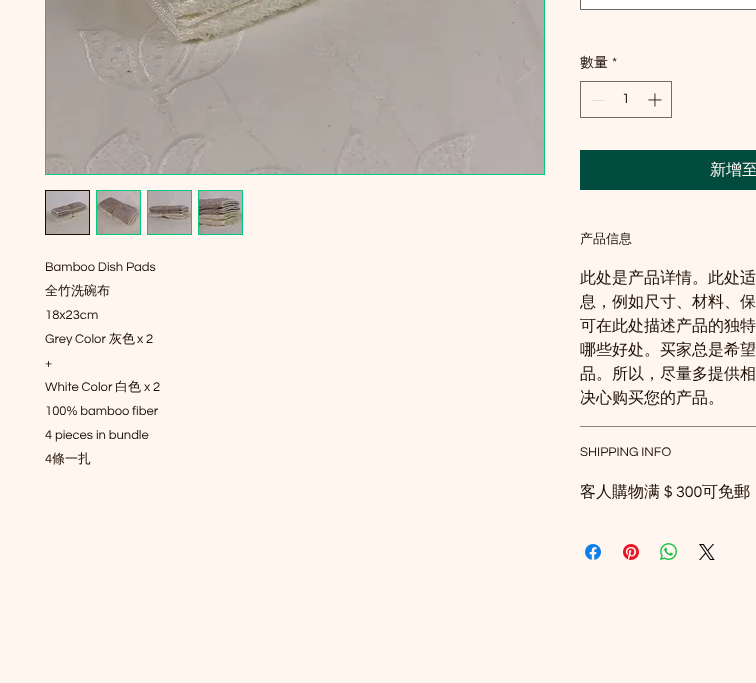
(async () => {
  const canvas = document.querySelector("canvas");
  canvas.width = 756;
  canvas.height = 683;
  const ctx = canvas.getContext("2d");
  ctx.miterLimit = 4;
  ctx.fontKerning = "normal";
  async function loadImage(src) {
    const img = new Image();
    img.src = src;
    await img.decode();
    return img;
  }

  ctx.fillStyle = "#fff6ef";
  ctx.fillRect(0, 0, 756, 683);
  ctx.strokeStyle = "#02ca81";
  ctx.strokeRect(45.5, -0.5, 499, 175);
  ctx.drawImage(await loadImage("img/1.png"), 46, 0, 498, 174);
  ctx.strokeStyle = "#1d0e03";
  ctx.strokeRect(45.5, 190.5, 44, 44);
  ctx.drawImage(await loadImage("img/2.png"), 46, 191, 43, 43);
  ctx.fillStyle = "#02ca81";
  ctx.fillRect(96, 190, 45, 45);
  ctx.drawImage(await loadImage("img/3.png"), 97, 191, 43, 43);
  ctx.fillRect(147, 190, 45, 45);
  ctx.drawImage(await loadImage("img/4.png"), 148, 191, 43, 43);
  ctx.fillRect(198, 190, 45, 45);
  ctx.drawImage(await loadImage("img/5.png"), 199, 191, 43, 43);
  ctx.fillStyle = "#ffffff";
  ctx.beginPath();
  ctx.rect(580.5, -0.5, 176, 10);
  ctx.fill();
  ctx.strokeStyle = "#666666";
  ctx.stroke();
  ctx.strokeStyle = "#776b61";
  ctx.strokeRect(580.5, 81.5, 91, 36);
  ctx.fillStyle = "#e3dfdb";
  ctx.fillRect(592, 100, 13, 1);
  ctx.drawImage(await loadImage("img/6.png"), 648, 93, 14, 14);
  ctx.fillStyle = "#014b3f";
  ctx.fillRect(580, 150, 176, 40);
  ctx.fillStyle = "#8e8279";
  ctx.fillRect(580, 426, 176, 1);
  ctx.drawImage(await loadImage("img/7.png"), 585, 544, 16, 16);
  ctx.drawImage(await loadImage("img/8.png"), 623, 544, 16, 16);
  ctx.drawImage(await loadImage("img/9.png"), 660, 543, 17, 17);
  ctx.drawImage(await loadImage("img/10.png"), 699, 544, 16, 16);
  ctx.font = "13px Questrial";
  ctx.fillStyle = "#1d0e03";
  ctx.fillText("Bamboo Dish Pads", 45, 271);
  ctx.font = "500 13px WenQuanYi Zen Hei";
  ctx.fillText("全竹洗碗布", 45, 295);
  ctx.font = "13px Questrial";
  ctx.fillText("18x23cm", 45, 319);
  ctx.fillText("Grey Color", 45, 343);
  ctx.font = "500 13px WenQuanYi Zen Hei";
  ctx.fillText("灰色", 109, 343);
  ctx.font = "13px Questrial";
  for (const [text, x, y] of [
    ["x 2", 137, 343],
    ["+", 45, 367],
    ["White Color", 45, 391],
  ]) {
    ctx.fillText(text, x, y);
  }
  ctx.font = "500 13px WenQuanYi Zen Hei";
  ctx.fillText("白色", 115, 391);
  ctx.font = "13px Questrial";
  for (const [text, x, y] of [
    ["x 2", 144, 391],
    ["100% bamboo fiber", 45, 415],
    ["4 pieces in bundle", 45, 439],
    ["4", 45, 463],
  ]) {
    ctx.fillText(text, x, y);
  }
  ctx.font = "500 13px WenQuanYi Zen Hei";
  ctx.fillText("條一扎", 52, 463);
  ctx.font = "500 14px WenQuanYi Zen Hei";
  ctx.fillText("數量", 580, 67);
  ctx.font = "14px Questrial";
  ctx.fillText("*", 612, 67);
  ctx.fillText("1", 622, 103);
  ctx.font = "500 16px WenQuanYi Zen Hei";
  ctx.fillStyle = "#fff6ef";
  ctx.fillText("新增至", 710, 175);
  ctx.font = "500 13px WenQuanYi Zen Hei";
  ctx.fillStyle = "#1d0e03";
  ctx.fillText("产品信息", 580, 243);
  ctx.font = "500 16px WenQuanYi Zen Hei";
  for (const [text, x, y] of [
    ["此处是产品详情。此处适", 580, 283],
    ["息，例如尺寸、材料、保", 580, 307],
    ["可在此处描述产品的独特", 580, 331],
    ["哪些好处。买家总是希望", 580, 355],
    ["品。所以，尽量多提供相", 580, 379],
    ["决心购买您的产品。", 580, 403],
  ]) {
    ctx.fillText(text, x, y);
  }
  ctx.font = "13px Questrial";
  ctx.fillText("SHIPPING INFO", 580, 456);
  ctx.font = "500 16px WenQuanYi Zen Hei";
  ctx.fillText("客人購物满＄", 580, 497);
  ctx.font = "16px Questrial";
  ctx.fillText("300", 676, 497);
  ctx.font = "500 16px WenQuanYi Zen Hei";
  ctx.fillText("可免郵", 702, 497);
})();
